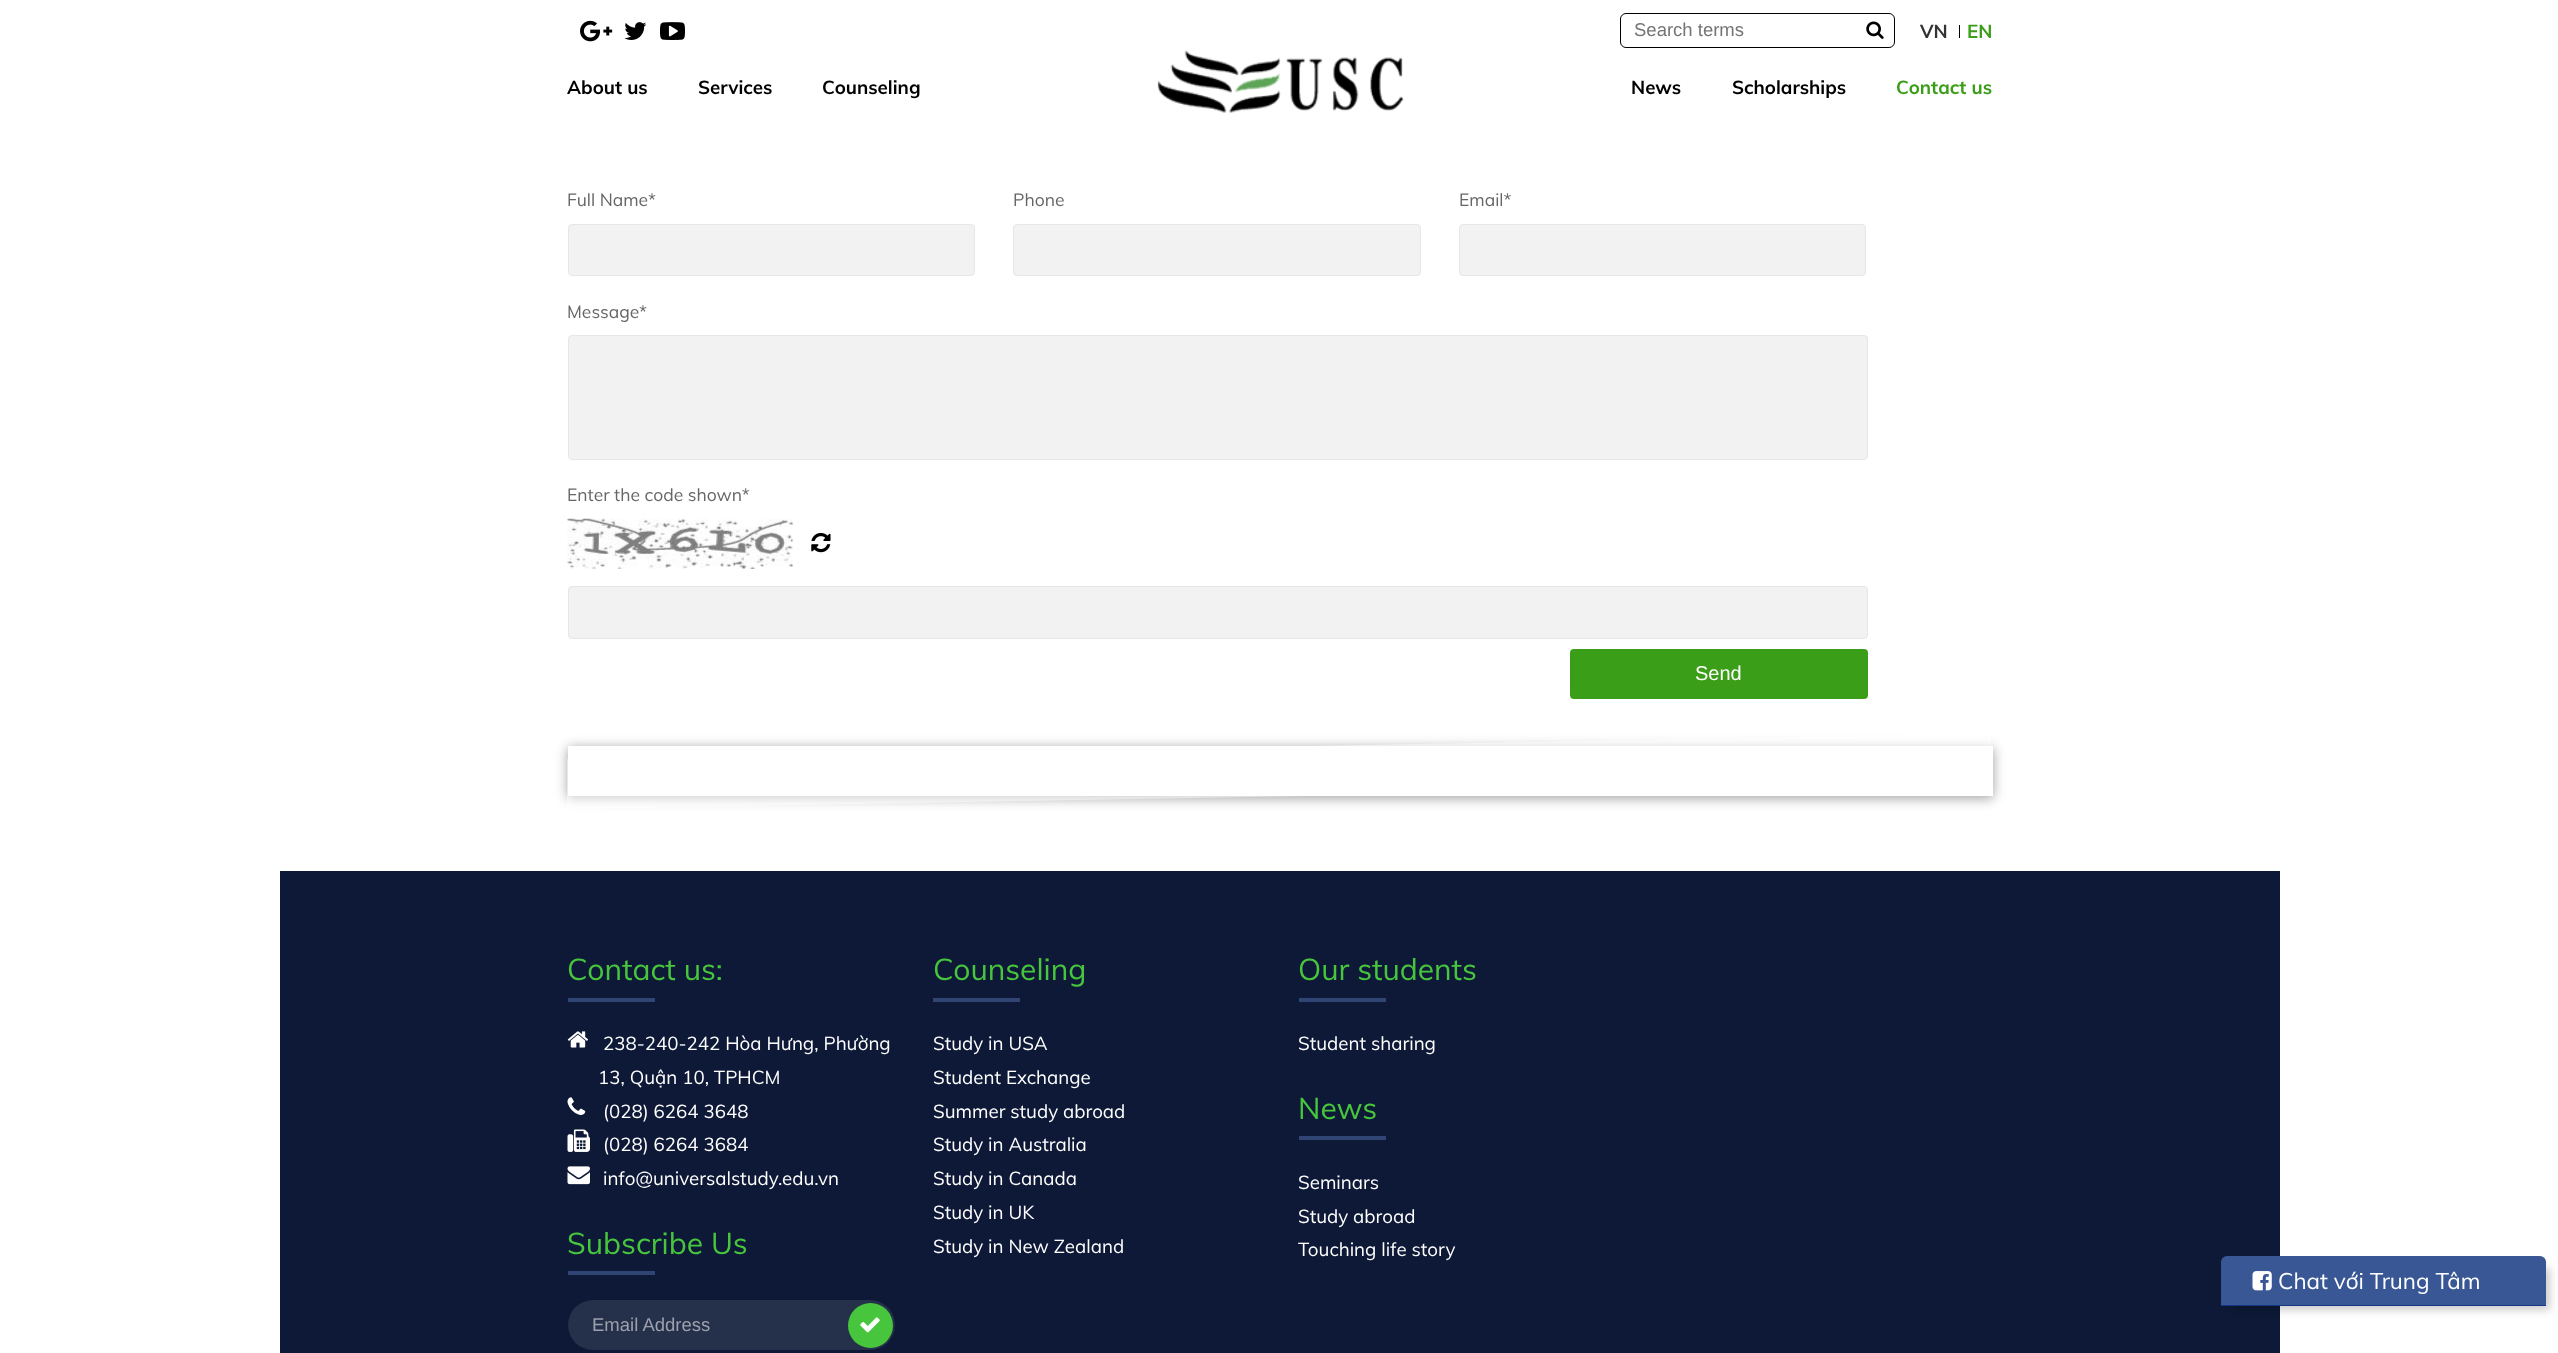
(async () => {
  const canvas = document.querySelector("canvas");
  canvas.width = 2558;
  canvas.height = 1353;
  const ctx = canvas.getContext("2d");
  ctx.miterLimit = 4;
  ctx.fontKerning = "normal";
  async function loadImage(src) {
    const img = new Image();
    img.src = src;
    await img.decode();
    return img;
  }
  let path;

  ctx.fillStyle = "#ffffff";
  ctx.fillRect(0, 0, 2558, 1353);
  ctx.drawImage(await loadImage("img/1.png"), 580, 20, 33, 22);
  ctx.drawImage(await loadImage("img/2.png"), 624, 22, 23, 18);
  ctx.drawImage(await loadImage("img/3.png"), 660, 22, 25, 18);
  ctx.beginPath();
  ctx.roundRect(1620.5, 13.5, 274, 34, 5.5);
  ctx.strokeStyle = "#000000";
  ctx.stroke();
  ctx.drawImage(await loadImage("img/4.png"), 1866, 21, 18, 18);
  ctx.fillStyle = "#000000";
  ctx.fillRect(1959, 25, 1, 13);
  ctx.drawImage(await loadImage("img/5.png"), 1157, 50, 247, 63);
  ctx.fillStyle = "#f2f2f2";
  ctx.beginPath();
  ctx.roundRect(568.5, 224.5, 406, 51, 3.5);
  ctx.fill();
  ctx.strokeStyle = "#e6e6e6";
  ctx.stroke();
  ctx.beginPath();
  ctx.roundRect(1013.5, 224.5, 407, 51, 3.5);
  ctx.fill();
  ctx.stroke();
  ctx.beginPath();
  ctx.roundRect(1459.5, 224.5, 406, 51, 3.5);
  ctx.fill();
  ctx.stroke();
  ctx.beginPath();
  ctx.roundRect(568.5, 335.5, 1299, 124, 3.5);
  ctx.fill();
  ctx.stroke();
  ctx.drawImage(await loadImage("img/6.png"), 567, 518, 226, 51);
  ctx.drawImage(await loadImage("img/7.png"), 811, 532, 20, 21);
  ctx.beginPath();
  ctx.roundRect(568.5, 586.5, 1299, 52, 3.5);
  ctx.fill();
  ctx.stroke();
  ctx.fillStyle = "#3b9e18";
  ctx.beginPath();
  ctx.roundRect(1570, 649, 298, 50, 4);
  ctx.fill();
  ctx.fillStyle = "rgba(0, 0, 0, 0.2)";
  ctx.filter = "blur(6.5px)";
  ctx.beginPath();
  ctx.rect(568, 748, 1425, 50);
  ctx.fill();
  ctx.filter = "none";
  ctx.fillStyle = "#ffffff";
  path = new Path2D("M567 759L1991 734L1992 784L567 809Z");
  ctx.fill(path);
  ctx.fillStyle = "rgba(0, 0, 0, 0.2)";
  ctx.filter = "blur(6px)";
  ctx.beginPath();
  ctx.rect(568, 748, 1425, 50);
  ctx.fill();
  ctx.filter = "none";
  for (const [x, y, w, h, color] of [
    [568, 746, 1425, 50, "#ffffff"],
    [280, 871, 2000, 482, "#0d1936"],
    [568, 998, 87, 4, "#314575"],
  ]) {
    ctx.fillStyle = color;
    ctx.fillRect(x, y, w, h);
  }
  ctx.drawImage(await loadImage("img/8.png"), 567, 1031, 21, 17);
  ctx.drawImage(await loadImage("img/9.png"), 567, 1097, 19, 18);
  ctx.drawImage(await loadImage("img/10.png"), 567, 1129, 23, 23);
  ctx.drawImage(await loadImage("img/11.png"), 567, 1166, 23, 19);
  ctx.fillRect(568, 1271, 87, 4);
  ctx.fillStyle = "#25304a";
  ctx.beginPath();
  ctx.roundRect(568, 1300, 327, 50, 25);
  ctx.fill();
  ctx.fillStyle = "#47c63d";
  ctx.beginPath();
  ctx.arc(870.5, 1325.5, 22.5, 0, Math.PI * 2);
  ctx.fill();
  ctx.drawImage(await loadImage("img/12.png"), 860, 1317, 20, 16);
  for (const [x, y, w, h, color] of [
    [933, 998, 87, 4, "#314575"],
    [1299, 998, 87, 4, "#314575"],
    [1299, 1136, 87, 4, "#314575"],
  ]) {
    ctx.fillStyle = color;
    ctx.fillRect(x, y, w, h);
  }
  ctx.fillStyle = "rgba(0, 0, 0, 0.2)";
  ctx.filter = "blur(4px)";
  ctx.beginPath();
  ctx.roundRect(2233, 1268, 317, 42, 2.5);
  ctx.fill();
  ctx.filter = "none";
  ctx.fillStyle = "#3a5795";
  ctx.beginPath();
  ctx.roundRect(2221, 1256, 325, 50, [6, 6, 0, 0]);
  ctx.fill();
  ctx.fillStyle = "#133783";
  ctx.fillRect(2221, 1305, 325, 1);
  ctx.drawImage(await loadImage("img/13.png"), 2252, 1271, 20, 20);
  ctx.font = "18.5px Liberation Sans";
  ctx.fillStyle = "#757575";
  ctx.fillText("Search terms", 1634, 36);
  ctx.font = "bold 18.75px Muli";
  ctx.fillStyle = "#333333";
  ctx.fillText("VN", 1920, 38);
  ctx.fillStyle = "#3b9e18";
  ctx.fillText("EN", 1967, 38);
  ctx.fillStyle = "#000000";
  for (const [text, x, y] of [
    ["About us", 567, 94],
    ["Services", 698, 94],
    ["Counseling", 822, 94],
    ["News", 1631, 94],
    ["Scholarships", 1732, 94],
  ]) {
    ctx.fillText(text, x, y);
  }
  ctx.fillStyle = "#3b9e18";
  ctx.fillText("Contact us", 1896, 94);
  ctx.font = "17.5px Muli";
  ctx.fillStyle = "#666666";
  for (const [text, x, y] of [
    ["Full Name*", 567, 206],
    ["Phone", 1013, 206],
    ["Email*", 1459, 206],
    ["Message*", 567, 318],
    ["Enter the code shown*", 567, 501],
  ]) {
    ctx.fillText(text, x, y);
  }
  ctx.font = "20px Liberation Sans";
  ctx.fillStyle = "#ffffff";
  ctx.fillText("Send", 1695, 680);
  ctx.font = "30px Muli";
  ctx.fillStyle = "#47c63d";
  ctx.fillText("Contact us:", 567, 980);
  ctx.font = "18.75px Muli";
  ctx.fillStyle = "#ffffff";
  for (const [text, x, y] of [
    ["238-240-242 Hòa Hưng, Phường", 603, 1050],
    ["13, Quận 10, TPHCM", 598, 1084],
    ["(028) 6264 3648", 603, 1118],
    ["(028) 6264 3684", 603, 1151],
    ["info@universalstudy.edu.vn", 603, 1185],
  ]) {
    ctx.fillText(text, x, y);
  }
  ctx.font = "30px Muli";
  ctx.fillStyle = "#47c63d";
  ctx.fillText("Subscribe Us", 567, 1254);
  ctx.font = "18.5px Liberation Sans";
  ctx.fillStyle = "#9ba0ac";
  ctx.fillText("Email Address", 592, 1331);
  ctx.font = "30px Muli";
  ctx.fillStyle = "#47c63d";
  ctx.fillText("Counseling", 933, 980);
  ctx.font = "18.75px Muli";
  ctx.fillStyle = "#ffffff";
  for (const [text, x, y] of [
    ["Study in USA", 933, 1050],
    ["Student Exchange", 933, 1084],
    ["Summer study abroad", 933, 1118],
    ["Study in Australia", 933, 1151],
    ["Study in Canada", 933, 1185],
    ["Study in UK", 933, 1219],
    ["Study in New Zealand", 933, 1253],
  ]) {
    ctx.fillText(text, x, y);
  }
  ctx.font = "30px Muli";
  ctx.fillStyle = "#47c63d";
  ctx.fillText("Our students", 1298, 980);
  ctx.font = "18.75px Muli";
  ctx.fillStyle = "#ffffff";
  ctx.fillText("Student sharing", 1298, 1050);
  ctx.font = "30px Muli";
  ctx.fillStyle = "#47c63d";
  ctx.fillText("News", 1298, 1119);
  ctx.font = "18.75px Muli";
  ctx.fillStyle = "#ffffff";
  for (const [text, x, y] of [
    ["Seminars", 1298, 1189],
    ["Study abroad", 1298, 1223],
    ["Touching life story", 1298, 1256],
  ]) {
    ctx.fillText(text, x, y);
  }
  ctx.font = "22.5px Muli";
  ctx.fillText("Chat với Trung Tâm", 2278, 1289);
})();
